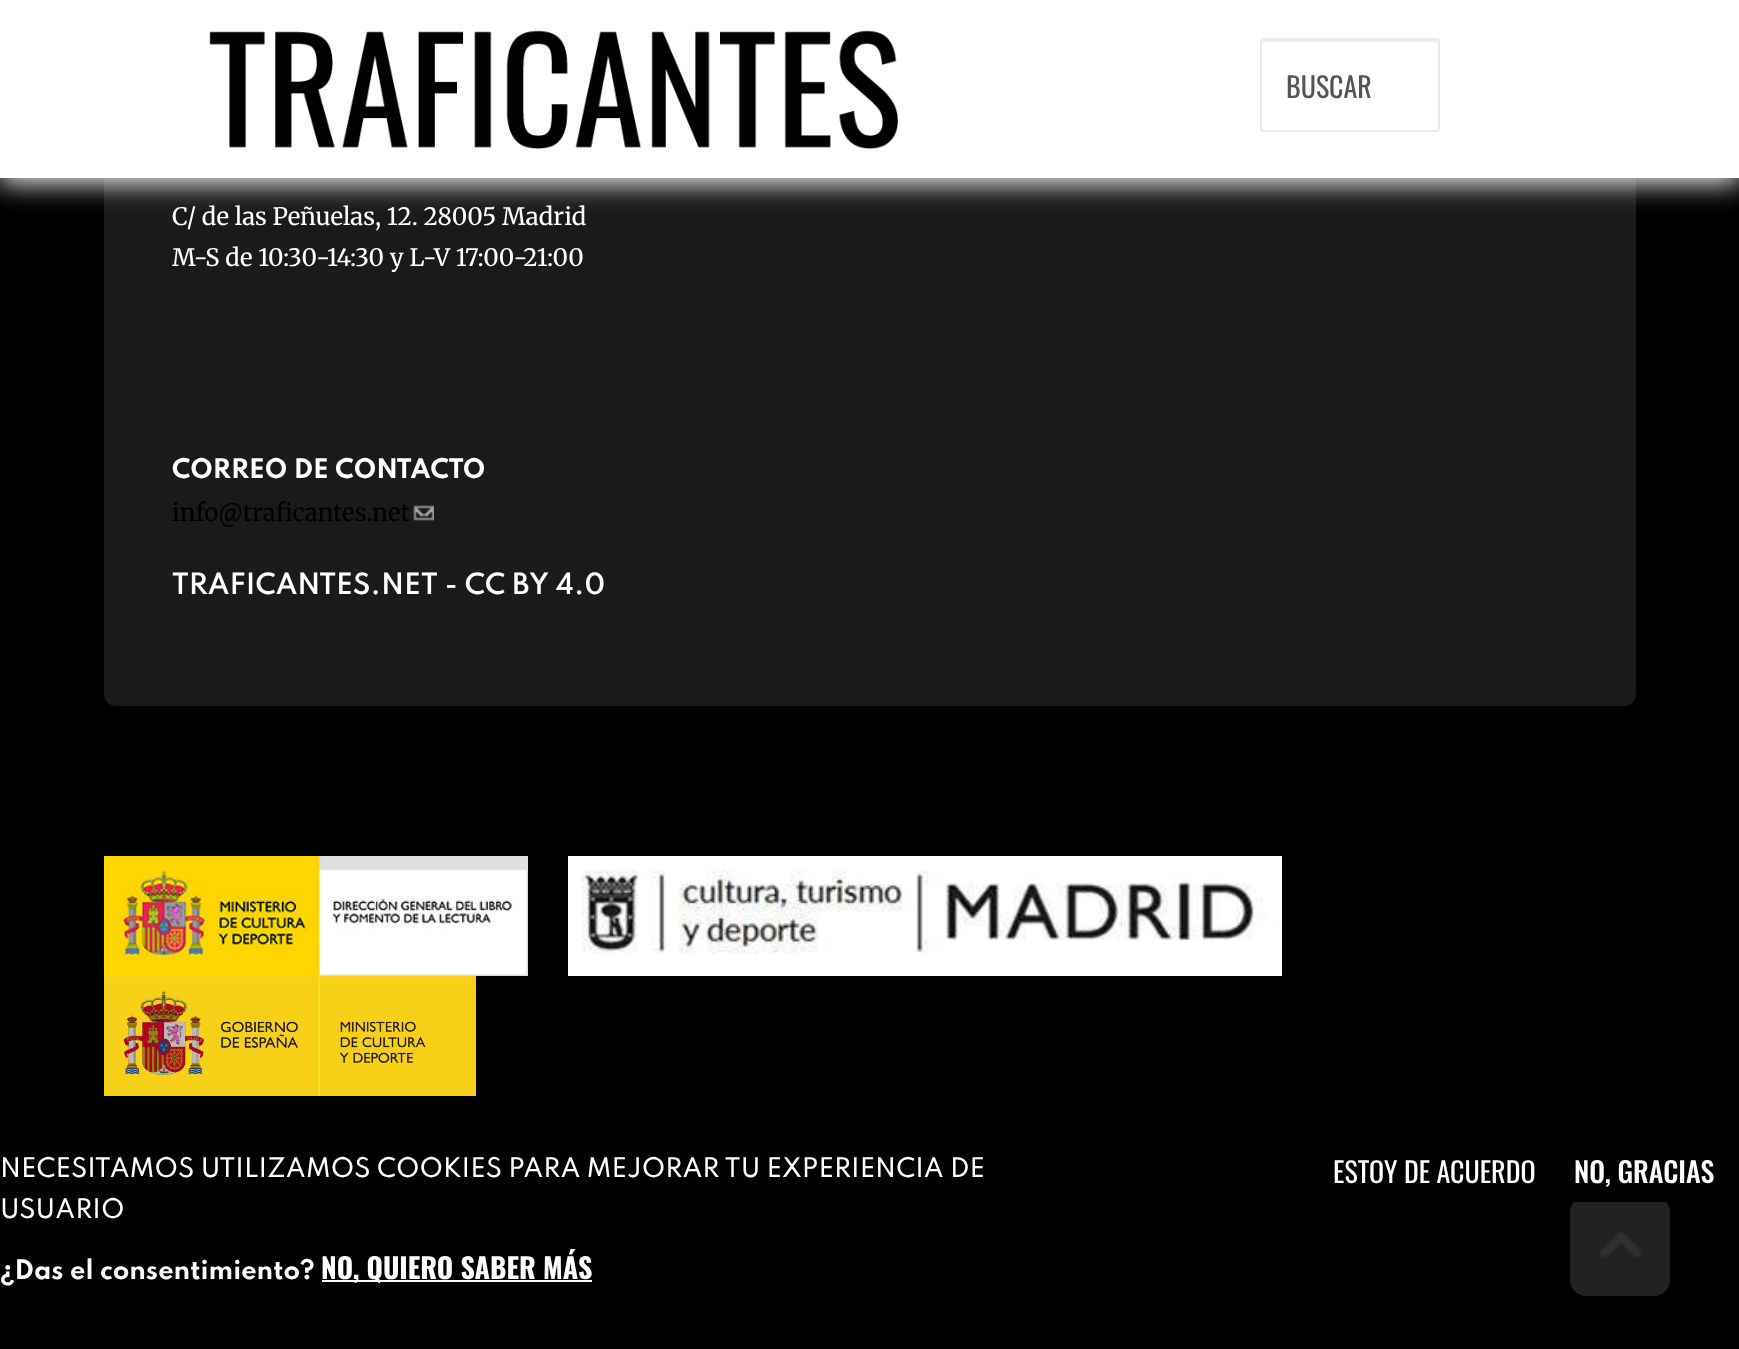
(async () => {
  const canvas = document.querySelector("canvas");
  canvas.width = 1739;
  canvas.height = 1349;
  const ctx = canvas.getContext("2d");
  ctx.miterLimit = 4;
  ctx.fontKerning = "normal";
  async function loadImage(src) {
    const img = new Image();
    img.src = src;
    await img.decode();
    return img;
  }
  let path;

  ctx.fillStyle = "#000000";
  ctx.fillRect(0, 0, 1739, 1349);
  ctx.fillStyle = "#1a1a1a";
  ctx.beginPath();
  ctx.roundRect(104, -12, 1532, 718, 12);
  ctx.fill();
  ctx.fillStyle = "#eaeaea";
  ctx.filter = "blur(13px)";
  ctx.beginPath();
  ctx.rect(0, 4, 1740, 180);
  ctx.fill();
  ctx.filter = "none";
  ctx.fillStyle = "#ffffff";
  ctx.fillRect(0, 0, 1739, 178);
  ctx.drawImage(await loadImage("img/1.png"), 209, 30, 689, 120);
  ctx.fillStyle = "#ececec";
  path = new Path2D("M1264 42H1436C1437 42 1438 43 1438 44C1438 43 1438 40 1436 40H1264C1262 40 1262 43 1262 44C1262 43 1263 42 1264 42Z");
  ctx.fill(path);
  ctx.beginPath();
  ctx.roundRect(1261, 39, 178, 92, 3);
  ctx.strokeStyle = "#eaeaea";
  ctx.lineWidth = 2;
  ctx.stroke();
  ctx.drawImage(await loadImage("img/2.png"), 413, 505, 21, 16);
  ctx.drawImage(await loadImage("img/3.png"), 104, 856, 424, 120);
  ctx.drawImage(await loadImage("img/4.png"), 568, 856, 714, 120);
  ctx.drawImage(await loadImage("img/5.png"), 104, 976, 372, 120);
  ctx.fillStyle = "#a3a3a3";
  ctx.beginPath();
  ctx.roundRect(1570, 1196, 100, 100, 16);
  ctx.fill();
  ctx.drawImage(await loadImage("img/6.png"), 1600, 1232, 42, 26);
  ctx.fillStyle = "rgba(0, 0, 0, 0.8)";
  ctx.beginPath();
  ctx.roundRect(0, 1112, 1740, 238, 4);
  ctx.fill();
  ctx.fillStyle = "#ffffff";
  ctx.fillRect(322, 1280, 270, 2);
  ctx.fillStyle = "#000000";
  ctx.beginPath();
  ctx.roundRect(1558, 1140, 172, 62, 4);
  ctx.fill();
  ctx.font = "28px Oswald";
  ctx.fillStyle = "#545454";
  ctx.fillText("BUSCAR", 1286, 98);
  ctx.font = "24px Merriweather";
  ctx.fillStyle = "#ffffff";
  ctx.fillText("C/ de las Peñuelas, 12. 28005 Madrid", 172, 225);
  ctx.fillText("M-S de 10:30-14:30 y L-V 17:00-21:00", 172, 266);
  ctx.font = "bold 24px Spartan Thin";
  ctx.fillText("CORREO DE CONTACTO", 172, 478);
  ctx.font = "24px Merriweather";
  ctx.fillStyle = "#000000";
  ctx.fillText("info@traficantes.net", 172, 521);
  ctx.font = "600 26px Spartan Thin";
  ctx.fillStyle = "#ffffff";
  ctx.fillText("TRAFICANTES.NET - CC BY 4.0", 172, 594);
  ctx.font = "500 24px Spartan Thin";
  ctx.fillText("NECESITAMOS UTILIZAMOS COOKIES PARA MEJORAR TU EXPERIENCIA DE", 0, 1177);
  ctx.fillText("USUARIO", 0, 1218);
  ctx.font = "bold 24px Spartan Thin";
  ctx.fillText("¿Das el consentimiento?", 0, 1279);
  ctx.font = "bold 28px Oswald";
  ctx.fillText("NO, QUIERO SABER MÁS", 321, 1279);
  ctx.font = "28px Oswald";
  ctx.fillText("ESTOY DE ACUERDO", 1333, 1183);
  ctx.font = "500 28px Oswald";
  ctx.fillText("NO, GRACIAS", 1574, 1183);
})();
